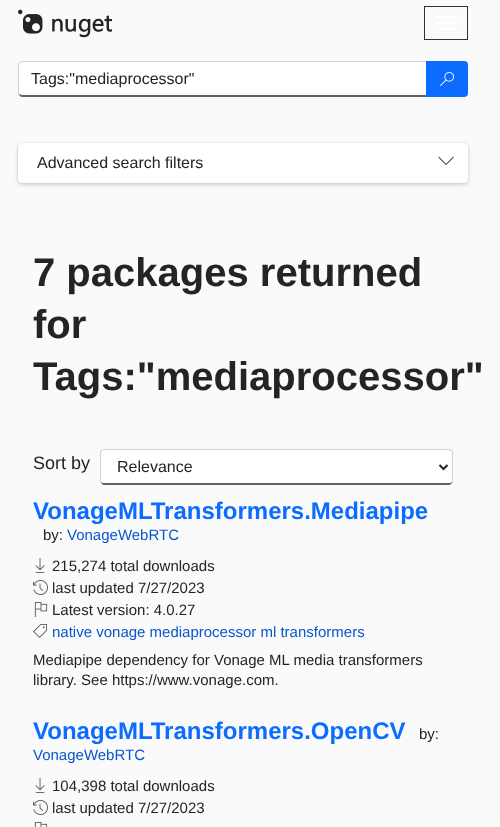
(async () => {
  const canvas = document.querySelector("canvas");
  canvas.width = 500;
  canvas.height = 827;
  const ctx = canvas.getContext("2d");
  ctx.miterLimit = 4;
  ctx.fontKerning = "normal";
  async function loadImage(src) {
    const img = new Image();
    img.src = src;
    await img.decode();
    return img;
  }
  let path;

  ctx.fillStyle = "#fafafa";
  ctx.fillRect(0, 0, 500, 827);
  ctx.drawImage(await loadImage("img/1.png"), 18, 9, 94, 29);
  ctx.strokeStyle = "#333333";
  ctx.strokeRect(424.5, 6.5, 43, 33);
  ctx.fillStyle = "#ffffff";
  ctx.beginPath();
  ctx.roundRect(435, 16, 22, 2, 1);
  ctx.fill();
  ctx.beginPath();
  ctx.roundRect(435, 22, 22, 2, 1);
  ctx.fill();
  ctx.beginPath();
  ctx.roundRect(435, 28, 22, 2, 1);
  ctx.fill();
  path = new Path2D("M22 62H426V95H22C20 95 19 94 19 93V65C19 63 20 62 22 62Z");
  ctx.fill(path);
  ctx.fillStyle = "#d1d1d1";
  path = new Path2D("M22 61L19 62L20 63L22 62H426L427 61Z");
  ctx.fill(path);
  ctx.fillStyle = "#616161";
  path = new Path2D("M427 97L426 95H22L19 94V95C20 96 21 97 22 97Z");
  ctx.fill(path);
  ctx.fillStyle = "#d1d1d1";
  path = new Path2D("M18 65V93C18 94 18.5 94.5 19 95.5L19.5 94L19 93V64.5L20 63L19 62C18.5 63 18 64 18 65Z");
  ctx.fill(path);
  ctx.fillStyle = "#0b6cff";
  ctx.beginPath();
  ctx.roundRect(426, 61, 42, 36, [0, 4, 4, 0]);
  ctx.fill();
  ctx.drawImage(await loadImage("img/2.png"), 440, 72, 14, 14);
  ctx.fillStyle = "rgba(0, 0, 0, 0.14)";
  ctx.filter = "blur(2px)";
  ctx.beginPath();
  ctx.roundRect(18, 145, 450, 40, 4);
  ctx.fill();
  ctx.filter = "none";
  ctx.fillStyle = "rgba(0, 0, 0, 0.12)";
  ctx.filter = "blur(1px)";
  ctx.beginPath();
  ctx.roundRect(18, 143, 450, 40, 4);
  ctx.fill();
  ctx.filter = "none";
  ctx.fillStyle = "#ffffff";
  ctx.beginPath();
  ctx.roundRect(18, 143, 450, 40, 4);
  ctx.fill();
  ctx.drawImage(await loadImage("img/3.png"), 438, 156, 16, 9);
  path = new Path2D("M104 450H449C451 450 452 451 452 453V481C452 482 451 483 449 483H104C102 483 101 482 101 481V453C101 451 102 450 104 450Z");
  ctx.fill(path);
  ctx.fillStyle = "#d1d1d1";
  path = new Path2D("M104 449L101 450L102 451L103 450H219H449L451 451L452 450L449 449Z");
  ctx.fill(path);
  path = new Path2D("M453 481V453C453 452 452.5 451 452 450L451 451L452 452.5V481L451.5 482L452 483.5C452.5 482.5 453 482 453 481Z");
  ctx.fill(path);
  ctx.fillStyle = "#616161";
  path = new Path2D("M104 485H449C450 485 451 484 452 483V482C451 483 450 483 449 483H104C103 483 102 483 101 482V483C102 484 103 485 104 485Z");
  ctx.fill(path);
  ctx.fillStyle = "#d1d1d1";
  path = new Path2D("M100 453V481C100 482 100.5 482.5 101 483.5L101.5 482L101 481V452.5L102 451L101 450C100.5 451 100 452 100 453Z");
  ctx.fill(path);
  path = new Path2D("M439.5 465L443.5 469L447.5 465");
  ctx.strokeStyle = "#242424";
  ctx.lineWidth = 2;
  ctx.stroke(path);
  ctx.drawImage(await loadImage("img/4.png"), 35, 558, 10, 15);
  ctx.drawImage(await loadImage("img/5.png"), 33, 580, 15, 15);
  ctx.drawImage(await loadImage("img/6.png"), 34, 602, 14, 15);
  ctx.drawImage(await loadImage("img/7.png"), 33, 624, 15, 14);
  ctx.drawImage(await loadImage("img/4.png"), 35, 778, 10, 15);
  ctx.drawImage(await loadImage("img/5.png"), 33, 800, 15, 15);
  ctx.drawImage(await loadImage("img/8.png"), 34, 822, 14, 5);
  ctx.font = "16px Liberation Sans";
  ctx.fillStyle = "#242424";
  ctx.fillText("Tags:\"mediaprocessor\"", 31, 84);
  ctx.fillText("Advanced search filters", 37, 168);
  ctx.font = "bold 40px Liberation Sans";
  for (const [text, x, y] of [
    ["7 packages returned", 33, 286],
    ["for", 33, 338],
    ["Tags:\"mediaprocessor\"", 33, 390],
  ]) {
    ctx.fillText(text, x, y);
  }
  ctx.font = "18px Liberation Sans";
  ctx.fillText("Sort by", 33, 469);
  ctx.font = "16px Liberation Sans";
  ctx.fillText("Relevance", 117, 472);
  ctx.font = "bold 24px Liberation Sans";
  ctx.fillStyle = "#0b6cff";
  ctx.fillText("VonageMLTransformers.Mediapipe", 33, 519);
  ctx.font = "15px Liberation Sans";
  ctx.fillStyle = "#242424";
  ctx.fillText("by:", 43, 540);
  ctx.fillStyle = "#0956cc";
  ctx.fillText("VonageWebRTC", 67, 540);
  ctx.fillStyle = "#242424";
  for (const [text, x, y] of [
    ["215,274 total downloads", 52, 571],
    ["last updated 7/27/2023", 52, 593],
    ["Latest version: 4.0.27", 52, 615],
  ]) {
    ctx.fillText(text, x, y);
  }
  ctx.fillStyle = "#0956cc";
  ctx.fillText("native vonage mediaprocessor ml transformers", 52, 637);
  ctx.fillStyle = "#242424";
  ctx.fillText("Mediapipe dependency for Vonage ML media transformers", 33, 665);
  ctx.fillText("library. See https://www.vonage.com.", 33, 685);
  ctx.font = "bold 24px Liberation Sans";
  ctx.fillStyle = "#0b6cff";
  ctx.fillText("VonageMLTransformers.OpenCV", 33, 739);
  ctx.font = "15px Liberation Sans";
  ctx.fillStyle = "#242424";
  ctx.fillText("by:", 419, 739);
  ctx.fillStyle = "#0956cc";
  ctx.fillText("VonageWebRTC", 33, 760);
  ctx.fillStyle = "#242424";
  ctx.fillText("104,398 total downloads", 52, 791);
  ctx.fillText("last updated 7/27/2023", 52, 813);
})();
